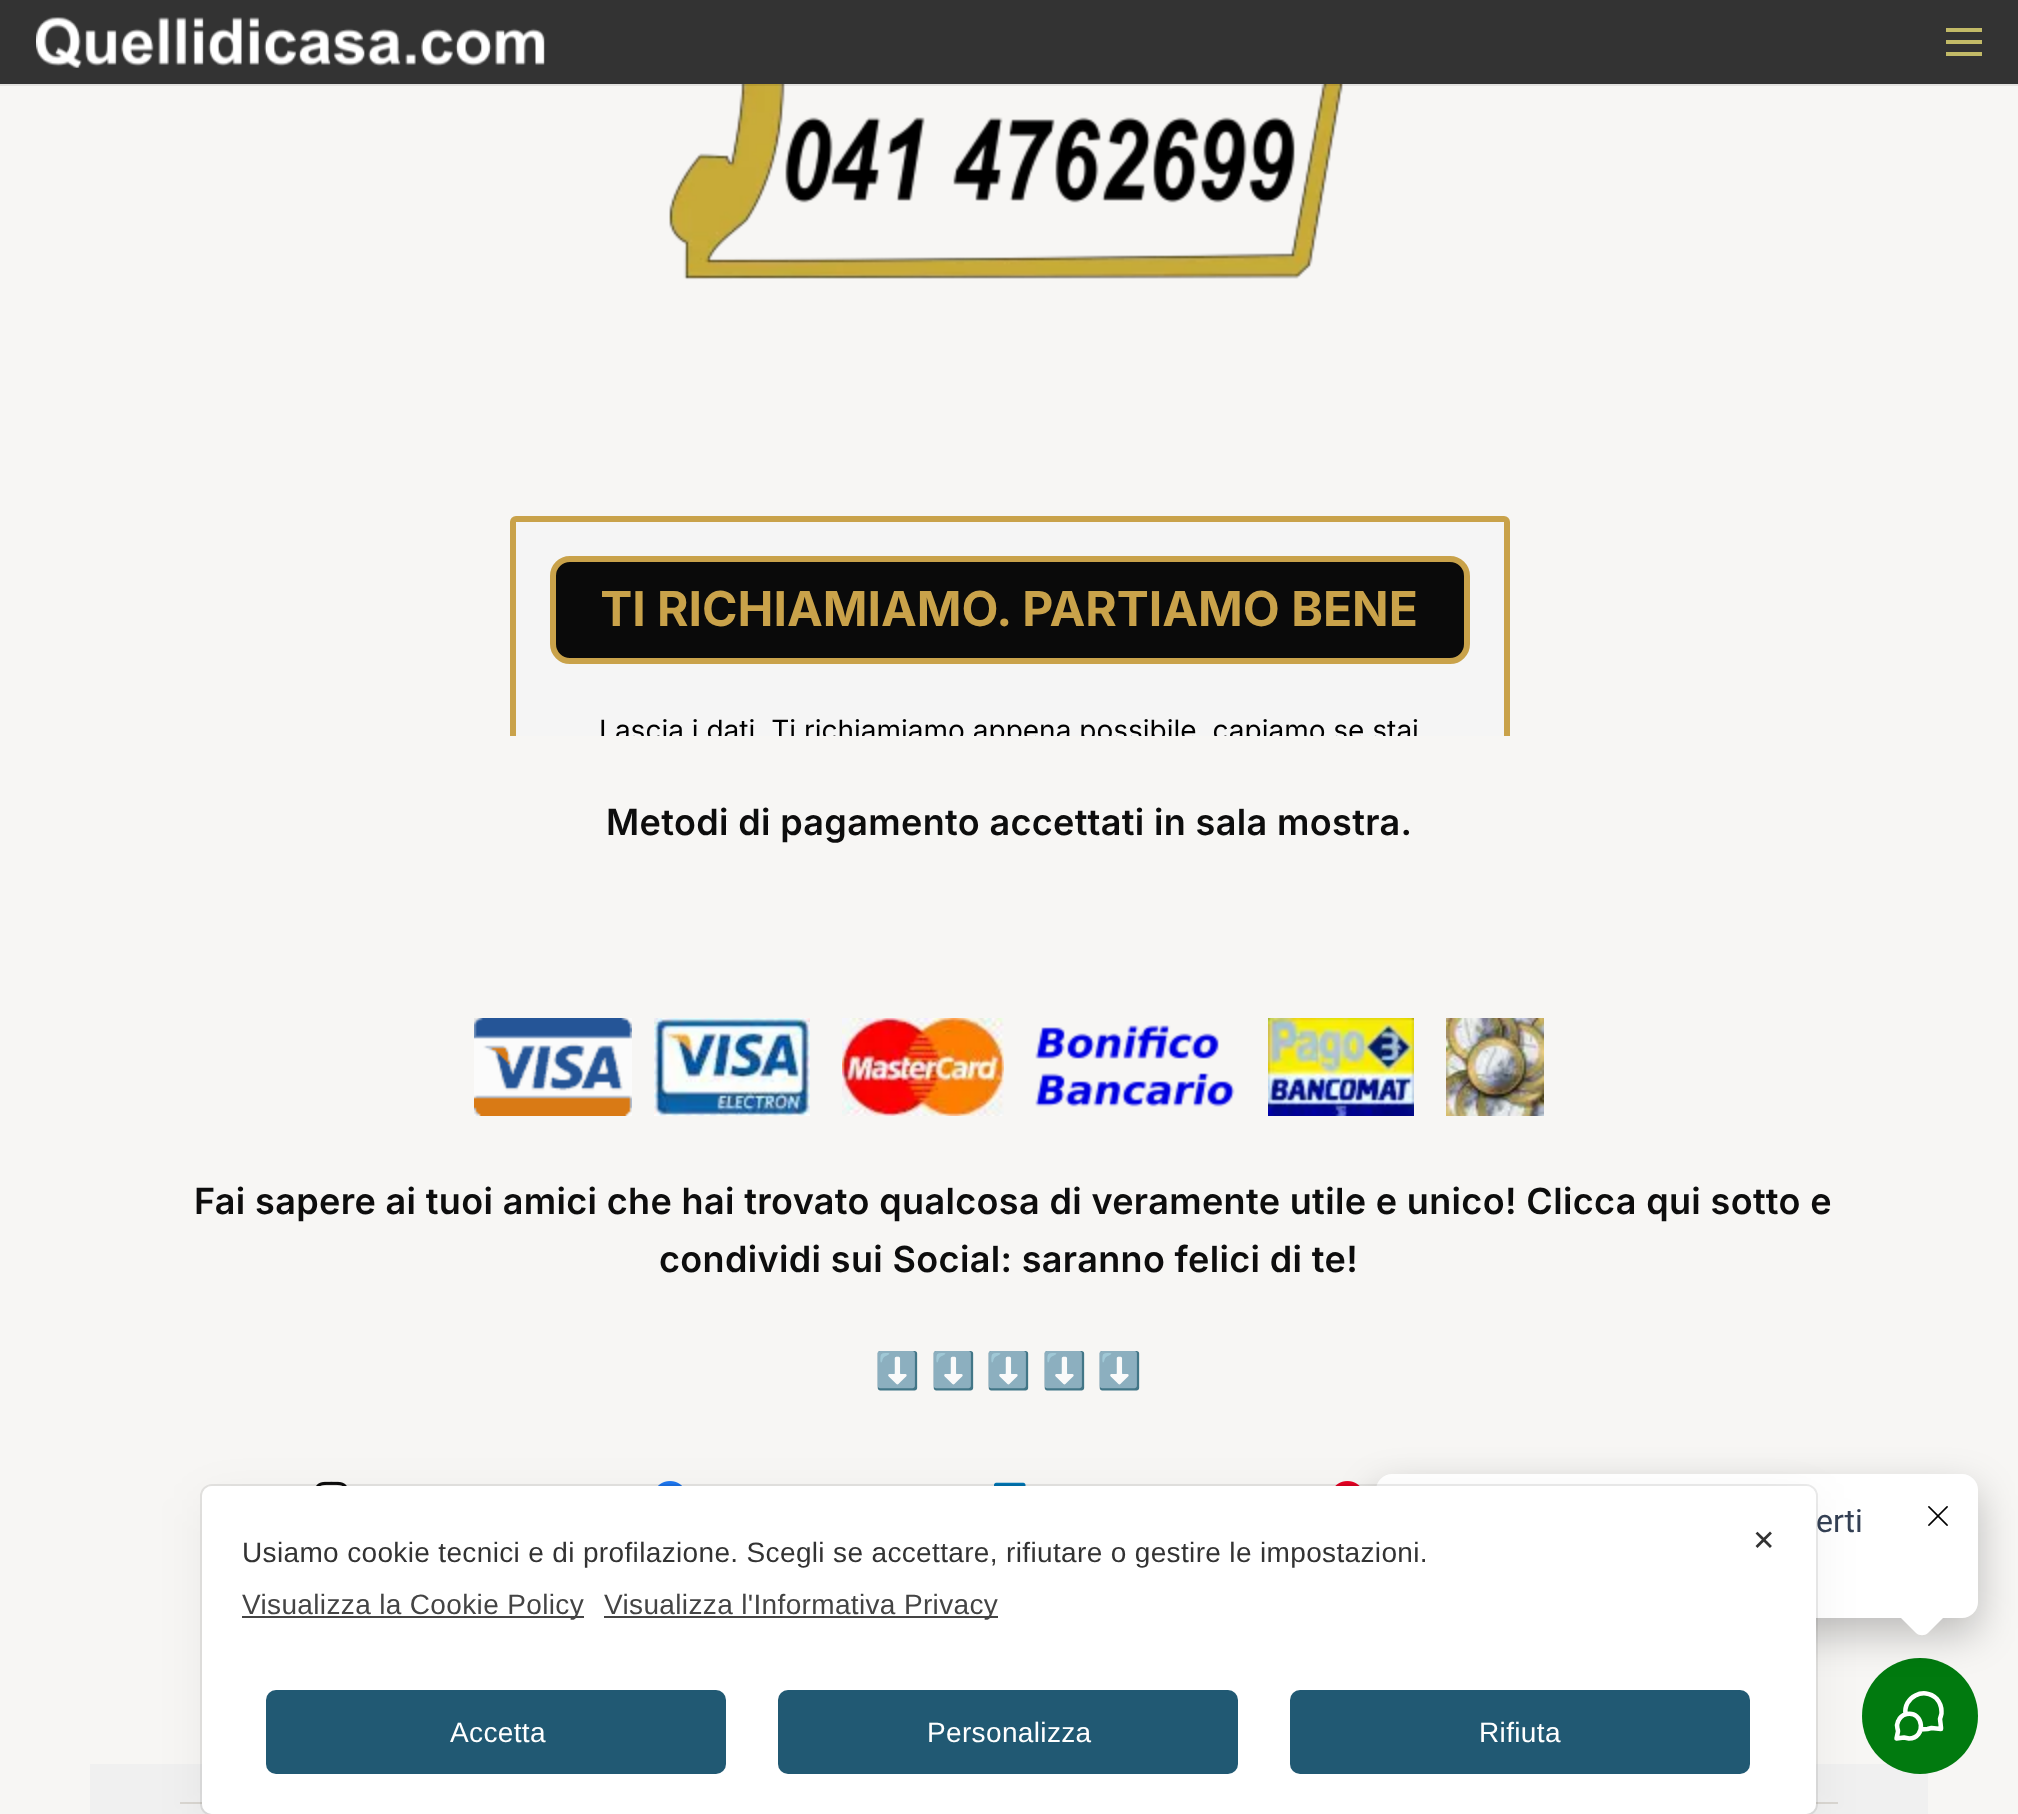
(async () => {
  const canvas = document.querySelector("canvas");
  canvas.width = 2018;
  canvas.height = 1814;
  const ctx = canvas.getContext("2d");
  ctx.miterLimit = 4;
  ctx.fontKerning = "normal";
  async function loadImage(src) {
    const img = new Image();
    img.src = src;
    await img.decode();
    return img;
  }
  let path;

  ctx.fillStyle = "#f7f6f4";
  ctx.fillRect(0, 0, 2018, 1814);
  ctx.drawImage(await loadImage("img/1.png"), 669, 84, 674, 196);
  ctx.drawImage(await loadImage("img/2.png"), 510, 516, 1000, 220);
  ctx.drawImage(await loadImage("img/3.png"), 474, 1018, 158, 98);
  ctx.drawImage(await loadImage("img/4.png"), 654, 1018, 156, 98);
  ctx.drawImage(await loadImage("img/5.png"), 842, 1018, 162, 98);
  ctx.drawImage(await loadImage("img/6.png"), 1035, 1025, 200, 82);
  ctx.drawImage(await loadImage("img/7.png"), 1268, 1018, 146, 98);
  ctx.drawImage(await loadImage("img/8.png"), 1446, 1018, 98, 98);
  ctx.drawImage(await loadImage("img/9.png"), 316, 1481, 31, 5);
  ctx.drawImage(await loadImage("img/10.png"), 658, 1481, 24, 5);
  ctx.drawImage(await loadImage("img/11.png"), 994, 1482, 32, 4);
  ctx.drawImage(await loadImage("img/12.png"), 1335, 1481, 25, 5);
  for (const [x, y, w, h, color] of [
    [90, 1764, 1838, 50, "#f0f0f0"],
    [180, 1802, 1658, 2, "#d9d6d1"],
    [0, 84, 2018, 2, "rgba(0, 0, 0, 0.08)"],
    [0, 0, 2018, 84, "#333333"],
  ]) {
    ctx.fillStyle = color;
    ctx.fillRect(x, y, w, h);
  }
  ctx.drawImage(await loadImage("img/13.png"), 36, 17, 509, 51);
  for (const [x, y, w, h, color] of [
    [1946, 40, 36, 4, "#c2ba67"],
    [1946, 28, 36, 4, "#c2ba67"],
    [1946, 52, 36, 4, "#c2ba67"],
  ]) {
    ctx.fillStyle = color;
    ctx.fillRect(x, y, w, h);
  }
  ctx.fillStyle = "#017a0f";
  ctx.beginPath();
  ctx.arc(1920, 1716, 58, 0, Math.PI * 2);
  ctx.fill();
  path = new Path2D("M1905.5 1714.5C1903 1697 1924 1686.5 1936.5 1698.5C1940 1702.5 1941.5 1706.5 1941.5 1711.5C1942 1714 1940.5 1716.5 1940 1719L1941 1727.5V1729L1931.5 1728L1927.5 1729L1920.5 1729.5M1909 1738.5C1926.5 1738.5 1924 1710.5 1906.5 1714C1902.5 1715 1899.5 1717.5 1898 1721.5C1895.5 1727 1898 1727.5 1898 1731.5L1896.5 1738.5L1904 1737.5Z");
  ctx.strokeStyle = "#ffffff";
  ctx.lineWidth = 4.5;
  ctx.lineCap = "round";
  ctx.lineJoin = "round";
  ctx.stroke(path);
  ctx.fillStyle = "rgba(0, 0, 0, 0.24)";
  ctx.filter = "blur(20px)";
  ctx.beginPath();
  ctx.roundRect(1376, 1490, 602, 144, 16);
  ctx.fill();
  ctx.filter = "none";
  ctx.fillStyle = "#ffffff";
  ctx.beginPath();
  ctx.roundRect(1376, 1474, 602, 144, 16);
  ctx.fill();
  path = new Path2D("M1928 1587L1945 1604C1948 1607 1948 1613 1945 1616L1928 1633C1925 1636 1919 1636 1916 1633L1899 1616C1896 1613 1896 1607 1899 1604L1916 1587C1919 1584 1925 1584 1928 1587Z");
  ctx.fill(path);
  ctx.drawImage(await loadImage("img/14.png"), 1928, 1506, 20, 20);
  ctx.letterSpacing = "0.35px";
  ctx.font = "600 36px Inter";
  ctx.fillStyle = "#0d0d0d";
  for (const [text, x, y] of [
    ["Metodi di pagamento accettati in sala mostra.", 606, 835],
    ["Fai sapere ai tuoi amici che hai trovato qualcosa di veramente utile e unico! Clicca qui sotto e", 194, 1214],
    ["condividi sui Social: saranno felici di te!", 659, 1272],
  ]) {
    ctx.fillText(text, x, y);
  }
  ctx.font = "36px Noto Color Emoji";
  for (const [text, x, y] of [
    ["⬇️", 875, 1383],
    ["⬇️", 931, 1383],
    ["⬇️", 986, 1383],
    ["⬇️", 1042, 1383],
    ["⬇️", 1097, 1383],
  ]) {
    ctx.fillText(text, x, y);
  }
  ctx.letterSpacing = "0px";
  ctx.font = "32px Roboto";
  ctx.fillStyle = "#344054";
  ctx.fillText("erti", 1816, 1532);
  ctx.beginPath();
  ctx.roundRect(201, 1485, 1616, 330, 11);
  ctx.strokeStyle = "rgba(0, 0, 0, 0.08)";
  ctx.lineWidth = 2;
  ctx.lineJoin = "miter";
  ctx.stroke();
  ctx.fillStyle = "rgba(0, 0, 0, 0.05)";
  ctx.filter = "blur(24px)";
  ctx.beginPath();
  ctx.roundRect(202, 1498, 1614, 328, 10);
  ctx.fill();
  ctx.filter = "none";
  ctx.fillStyle = "#ffffff";
  ctx.beginPath();
  ctx.roundRect(202, 1486, 1614, 328, 10);
  ctx.fill();
  ctx.letterSpacing = "0.35px";
  ctx.font = "28px Liberation Sans";
  ctx.fillStyle = "#333333";
  ctx.fillText("Usiamo cookie tecnici e di profilazione. Scegli se accettare, rifiutare o gestire le impostazioni.", 242, 1562);
  ctx.fillStyle = "#444444";
  ctx.fillRect(242, 1616, 342, 2);
  ctx.fillText("Visualizza la Cookie Policy", 242, 1614);
  ctx.fillRect(604, 1616, 394, 2);
  ctx.fillText("Visualizza l'Informativa Privacy", 604, 1614);
  ctx.fillStyle = "#215973";
  ctx.beginPath();
  ctx.roundRect(266, 1690, 460, 84, 10);
  ctx.fill();
  ctx.fillStyle = "#ffffff";
  ctx.fillText("Accetta", 450, 1742);
  ctx.fillStyle = "#215973";
  ctx.beginPath();
  ctx.roundRect(778, 1690, 460, 84, 10);
  ctx.fill();
  ctx.fillStyle = "#ffffff";
  ctx.fillText("Personalizza", 927, 1742);
  ctx.fillStyle = "#215973";
  ctx.beginPath();
  ctx.roundRect(1290, 1690, 460, 84, 10);
  ctx.fill();
  ctx.fillStyle = "#ffffff";
  ctx.fillText("Rifiuta", 1479, 1742);
  ctx.font = "28px DejaVu Sans";
  ctx.fillStyle = "#333333";
  ctx.fillText("✕", 1752, 1550);
})();
